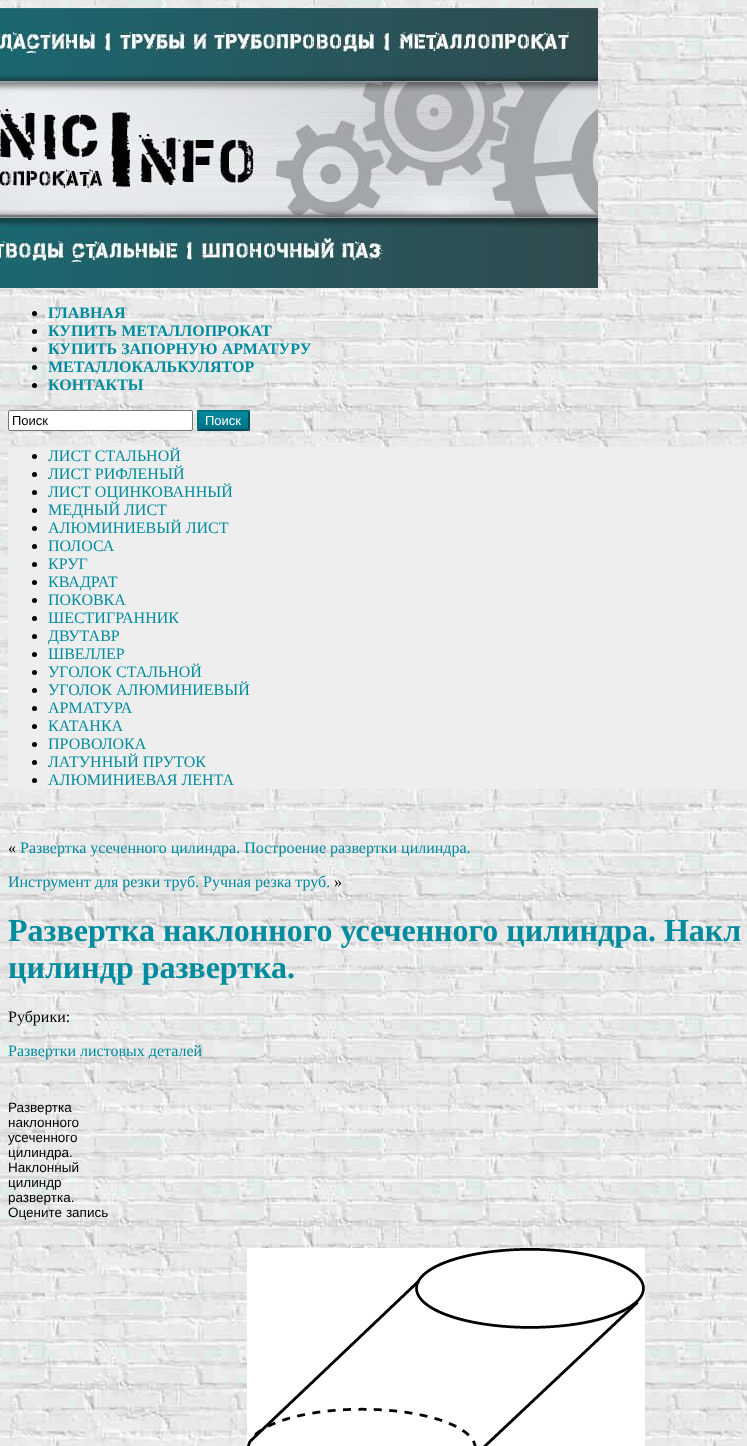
(async () => {
  const canvas = document.querySelector("canvas");
  canvas.width = 747;
  canvas.height = 1446;
  const ctx = canvas.getContext("2d");
  ctx.miterLimit = 4;
  ctx.fontKerning = "normal";
  async function loadImage(src) {
    const img = new Image();
    img.src = src;
    await img.decode();
    return img;
  }
  let gradient, path;

  ctx.fillStyle = "#ffffff";
  ctx.fillRect(0, 0, 747, 1446);
  ctx.drawImage(await loadImage("img/1.png"), 0, 0, 747, 1446);
  ctx.drawImage(await loadImage("img/2.png"), 0, 8, 598, 280);
  ctx.fillStyle = "#000000";
  ctx.beginPath();
  ctx.arc(34.5, 313.5, 2.5, 0, Math.PI * 2);
  ctx.fill();
  ctx.beginPath();
  ctx.arc(34.5, 331.5, 2.5, 0, Math.PI * 2);
  ctx.fill();
  ctx.beginPath();
  ctx.arc(34.5, 349.5, 2.5, 0, Math.PI * 2);
  ctx.fill();
  ctx.beginPath();
  ctx.arc(34.5, 367.5, 2.5, 0, Math.PI * 2);
  ctx.fill();
  ctx.beginPath();
  ctx.arc(34.5, 385.5, 2.5, 0, Math.PI * 2);
  ctx.fill();
  ctx.fillStyle = "#ffffff";
  ctx.beginPath();
  ctx.roundRect(8.5, 410.5, 184, 20, 1.5);
  ctx.fill();
  ctx.strokeStyle = "#767676";
  ctx.stroke();
  gradient = ctx.createLinearGradient(224, 412, 224, 429);
  gradient.addColorStop(0, "#008c9e");
  gradient.addColorStop(1, "#007284");
  ctx.fillStyle = gradient;
  ctx.fillRect(199, 412, 49, 17);
  ctx.fillStyle = "#007284";
  path = new Path2D("M197 410H250L248 412H199Z");
  ctx.fill(path);
  ctx.fillStyle = "#004c58";
  path = new Path2D("M250 410V431L248 429V412Z");
  ctx.fill(path);
  path = new Path2D("M250 431H197L199 429H248Z");
  ctx.fill(path);
  ctx.fillStyle = "#007284";
  path = new Path2D("M197 431V410L199 412V429Z");
  ctx.fill(path);
  ctx.fillStyle = "#eeeeee";
  ctx.fillRect(8, 447, 739, 342);
  ctx.fillStyle = "#000000";
  ctx.beginPath();
  ctx.arc(34.5, 456.5, 2.5, 0, Math.PI * 2);
  ctx.fill();
  ctx.beginPath();
  ctx.arc(34.5, 474.5, 2.5, 0, Math.PI * 2);
  ctx.fill();
  ctx.beginPath();
  ctx.arc(34.5, 492.5, 2.5, 0, Math.PI * 2);
  ctx.fill();
  ctx.beginPath();
  ctx.arc(34.5, 510.5, 2.5, 0, Math.PI * 2);
  ctx.fill();
  ctx.beginPath();
  ctx.arc(34.5, 528.5, 2.5, 0, Math.PI * 2);
  ctx.fill();
  ctx.beginPath();
  ctx.arc(34.5, 546.5, 2.5, 0, Math.PI * 2);
  ctx.fill();
  ctx.beginPath();
  ctx.arc(34.5, 564.5, 2.5, 0, Math.PI * 2);
  ctx.fill();
  ctx.beginPath();
  ctx.arc(34.5, 582.5, 2.5, 0, Math.PI * 2);
  ctx.fill();
  ctx.beginPath();
  ctx.arc(34.5, 600.5, 2.5, 0, Math.PI * 2);
  ctx.fill();
  ctx.beginPath();
  ctx.arc(34.5, 618.5, 2.5, 0, Math.PI * 2);
  ctx.fill();
  ctx.beginPath();
  ctx.arc(34.5, 636.5, 2.5, 0, Math.PI * 2);
  ctx.fill();
  ctx.beginPath();
  ctx.arc(34.5, 654.5, 2.5, 0, Math.PI * 2);
  ctx.fill();
  ctx.beginPath();
  ctx.arc(34.5, 672.5, 2.5, 0, Math.PI * 2);
  ctx.fill();
  ctx.beginPath();
  ctx.arc(34.5, 690.5, 2.5, 0, Math.PI * 2);
  ctx.fill();
  ctx.beginPath();
  ctx.arc(34.5, 708.5, 2.5, 0, Math.PI * 2);
  ctx.fill();
  ctx.beginPath();
  ctx.arc(34.5, 726.5, 2.5, 0, Math.PI * 2);
  ctx.fill();
  ctx.beginPath();
  ctx.arc(34.5, 744.5, 2.5, 0, Math.PI * 2);
  ctx.fill();
  ctx.beginPath();
  ctx.arc(34.5, 762.5, 2.5, 0, Math.PI * 2);
  ctx.fill();
  ctx.beginPath();
  ctx.arc(34.5, 780.5, 2.5, 0, Math.PI * 2);
  ctx.fill();
  ctx.drawImage(await loadImage("img/3.png"), 247, 1248, 398, 198);
  ctx.font = "bold 16px Liberation Serif";
  ctx.fillStyle = "#008c9e";
  for (const [text, x, y] of [
    ["ГЛАВНАЯ", 48, 318],
    ["КУПИТЬ МЕТАЛЛОПРОКАТ", 48, 336],
    ["КУПИТЬ ЗАПОРНУЮ АРМАТУРУ", 48, 354],
    ["МЕТАЛЛОКАЛЬКУЛЯТОР", 48, 372],
    ["КОНТАКТЫ", 48, 390],
  ]) {
    ctx.fillText(text, x, y);
  }
  ctx.font = "13px Liberation Sans";
  ctx.fillStyle = "#000000";
  ctx.fillText("Поиск", 12, 425);
  ctx.fillStyle = "#ffffff";
  ctx.fillText("Поиск", 205, 425);
  ctx.font = "16px Liberation Serif";
  ctx.fillStyle = "#008c9e";
  for (const [text, x, y] of [
    ["ЛИСТ СТАЛЬНОЙ", 48, 461],
    ["ЛИСТ РИФЛЕНЫЙ", 48, 479],
    ["ЛИСТ ОЦИНКОВАННЫЙ", 48, 497],
    ["МЕДНЫЙ ЛИСТ", 48, 515],
    ["АЛЮМИНИЕВЫЙ ЛИСТ", 48, 533],
    ["ПОЛОСА", 48, 551],
    ["КРУГ", 48, 569],
    ["КВАДРАТ", 48, 587],
    ["ПОКОВКА", 48, 605],
    ["ШЕСТИГРАННИК", 48, 623],
    ["ДВУТАВР", 48, 641],
    ["ШВЕЛЛЕР", 48, 659],
    ["УГОЛОК СТАЛЬНОЙ", 48, 677],
    ["УГОЛОК АЛЮМИНИЕВЫЙ", 48, 695],
    ["АРМАТУРА", 48, 713],
    ["КАТАНКА", 48, 731],
    ["ПРОВОЛОКА", 48, 749],
    ["ЛАТУННЫЙ ПРУТОК", 48, 767],
    ["АЛЮМИНИЕВАЯ ЛЕНТА", 48, 785],
  ]) {
    ctx.fillText(text, x, y);
  }
  ctx.fillStyle = "#000000";
  ctx.fillText("«", 8, 853);
  ctx.fillStyle = "#008c9e";
  ctx.fillText("Развертка усеченного цилиндра. Построение развертки цилиндра.", 20, 853);
  ctx.fillText("Инструмент для резки труб. Ручная резка труб.", 8, 887);
  ctx.fillStyle = "#000000";
  ctx.fillText("»", 334, 887);
  ctx.font = "bold 32px Liberation Serif";
  ctx.fillStyle = "#008c9e";
  ctx.fillText("Развертка наклонного усеченного цилиндра. Накл", 8, 941);
  ctx.fillText("цилиндр развертка.", 8, 978);
  ctx.font = "16px Liberation Serif";
  ctx.fillStyle = "#000000";
  ctx.fillText("Рубрики:", 8, 1022);
  ctx.fillStyle = "#008c9e";
  ctx.fillText("Развертки листовых деталей", 8, 1056);
  ctx.font = "13.5px Liberation Sans";
  ctx.fillStyle = "#000000";
  for (const [text, x, y] of [
    ["Развертка", 8, 1112],
    ["наклонного", 8, 1127],
    ["усеченного", 8, 1142],
    ["цилиндра.", 8, 1157],
    ["Наклонный", 8, 1172],
    ["цилиндр", 8, 1187],
    ["развертка.", 8, 1202],
    ["Оцените запись", 8, 1217],
  ]) {
    ctx.fillText(text, x, y);
  }
})();
